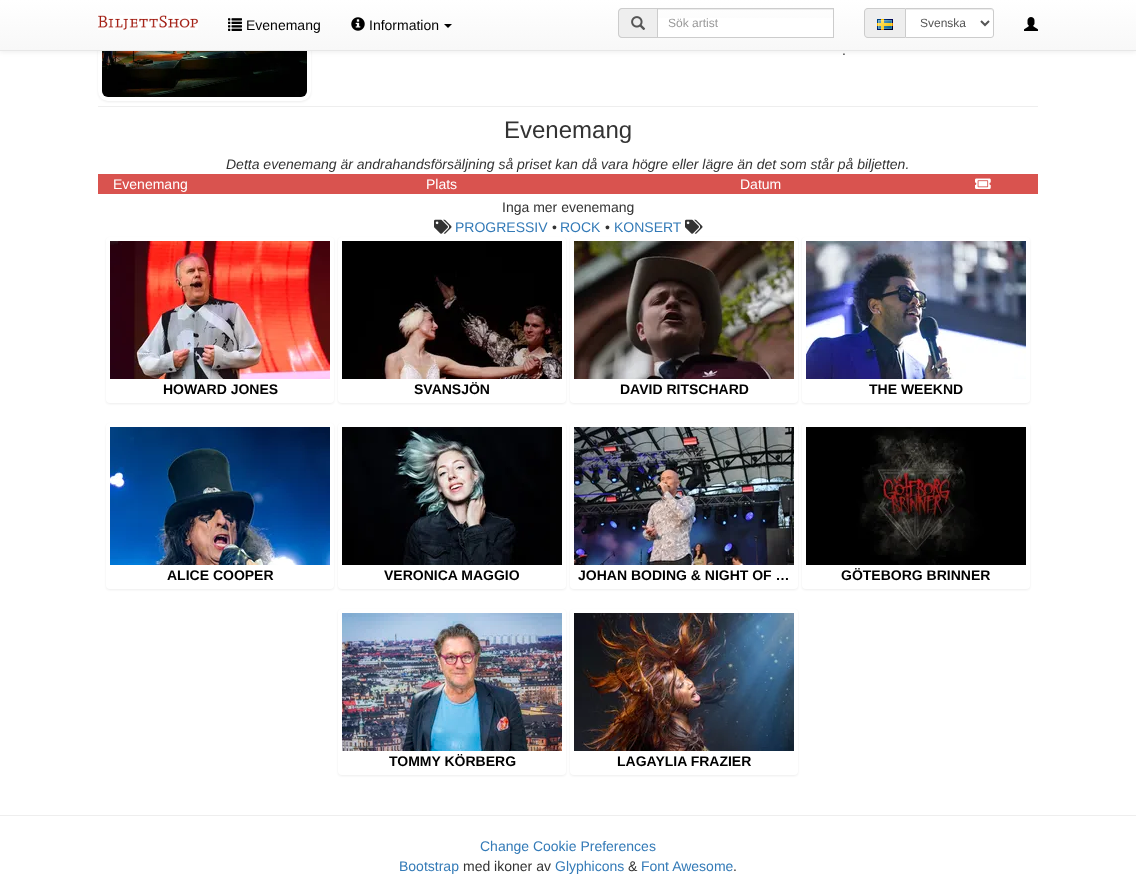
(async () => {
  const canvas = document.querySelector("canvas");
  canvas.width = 1136;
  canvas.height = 874;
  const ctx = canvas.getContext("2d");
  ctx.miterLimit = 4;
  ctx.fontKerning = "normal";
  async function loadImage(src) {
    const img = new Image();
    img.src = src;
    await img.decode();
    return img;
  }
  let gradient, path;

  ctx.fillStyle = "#ffffff";
  ctx.fillRect(0, 0, 1136, 874);
  ctx.fillStyle = "rgba(0, 0, 0, 0.07)";
  ctx.filter = "blur(1px)";
  ctx.beginPath();
  ctx.roundRect(98, -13, 213, 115, 10);
  ctx.fill();
  ctx.filter = "none";
  ctx.fillStyle = "#ffffff";
  ctx.beginPath();
  ctx.roundRect(98, -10, 213, 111, 10);
  ctx.fill();
  ctx.drawImage(await loadImage("img/7.png"), 102, 51, 205, 46);
  ctx.fillStyle = "rgba(0, 0, 0, 0.07)";
  ctx.filter = "blur(2.5px)";
  ctx.beginPath();
  ctx.rect(0, 1, 1136, 51);
  ctx.fill();
  ctx.filter = "none";
  gradient = ctx.createLinearGradient(568, 0, 568, 50);
  gradient.addColorStop(0, "#ffffff");
  gradient.addColorStop(1, "#f8f8f8");
  ctx.fillStyle = gradient;
  ctx.fillRect(0, 0, 1136, 50);
  ctx.fillStyle = "#e7e7e7";
  ctx.fillRect(0, 50, 1136, 1);
  ctx.drawImage(await loadImage("img/1.png"), 98, 15, 100, 15);
  ctx.drawImage(await loadImage("img/2.png"), 228, 18, 14, 13);
  ctx.drawImage(await loadImage("img/3.png"), 351, 17, 14, 14);
  ctx.fillStyle = "#000000";
  path = new Path2D("M444 24H452L448 28Z");
  ctx.fill(path);
  ctx.fillStyle = "#eeeeee";
  ctx.beginPath();
  ctx.roundRect(618, 8, 39, 30, [4, 0, 0, 4]);
  ctx.fill();
  ctx.fillStyle = "#cccccc";
  path = new Path2D("M622 8H657V38H622C620 38 618 36 618 34V12C618 10 620 8 622 8ZM622 9H657V37H622C620.5 37 619 35.5 619 34V12C619 10.5 620.5 9 622 9Z");
  ctx.fill(path, "evenodd");
  ctx.drawImage(await loadImage("img/4.png"), 631, 16, 15, 14);
  ctx.fillStyle = "#ffffff";
  ctx.fillRect(658, 18, 175, 19);
  ctx.fillStyle = "#ececec";
  ctx.fillRect(658, 9, 175, 1);
  ctx.strokeStyle = "#cccccc";
  ctx.strokeRect(657.5, 8.5, 176, 29);
  ctx.fillStyle = "#eeeeee";
  ctx.beginPath();
  ctx.roundRect(864, 8, 41, 30, [4, 0, 0, 4]);
  ctx.fill();
  ctx.fillStyle = "#cccccc";
  path = new Path2D("M868 8H905V38H868C866 38 864 36 864 34V12C864 10 866 8 868 8ZM868 9H905V37H868C866 37 865 36 865 34V12C865 10 866 9 868 9Z");
  ctx.fill(path, "evenodd");
  ctx.drawImage(await loadImage("img/5.png"), 877, 19, 16, 11);
  ctx.fillStyle = "#ffffff";
  ctx.beginPath();
  ctx.roundRect(905, 8, 89, 30, [0, 3, 3, 0]);
  ctx.fill();
  ctx.fillStyle = "#ececec";
  path = new Path2D("M906 10H991C992 10 993 11 993 12V11C993 10 992 9 991 9H906Z");
  ctx.fill(path);
  ctx.beginPath();
  ctx.roundRect(905.5, 8.5, 88, 29, [0, 2.5, 2.5, 0]);
  ctx.stroke();
  path = new Path2D("M981 21L985 25L989 21");
  ctx.strokeStyle = "#555555";
  ctx.lineWidth = 2;
  ctx.stroke(path);
  ctx.drawImage(await loadImage("img/6.png"), 1024, 17, 14, 14);
  ctx.fillStyle = "#eeeeee";
  ctx.fillRect(98, 106, 940, 1);
  ctx.fillStyle = "#d9534f";
  ctx.fillRect(98, 174, 940, 20);
  ctx.drawImage(await loadImage("img/8.png"), 975, 178, 16, 11);
  ctx.drawImage(await loadImage("img/9.png"), 434, 219, 18, 15);
  ctx.drawImage(await loadImage("img/9.png"), 685, 219, 18, 15);
  ctx.fillStyle = "rgba(0, 0, 0, 0.07)";
  ctx.filter = "blur(1px)";
  ctx.beginPath();
  ctx.roundRect(106, 238, 228, 166, 4);
  ctx.fill();
  ctx.filter = "none";
  ctx.fillStyle = "#ffffff";
  ctx.beginPath();
  ctx.roundRect(106, 237, 228, 166, 4);
  ctx.fill();
  ctx.drawImage(await loadImage("img/10.png"), 110, 241, 220, 138);
  ctx.fillStyle = "rgba(0, 0, 0, 0.07)";
  ctx.filter = "blur(1px)";
  ctx.beginPath();
  ctx.roundRect(338, 238, 228, 166, 4);
  ctx.fill();
  ctx.filter = "none";
  ctx.fillStyle = "#ffffff";
  ctx.beginPath();
  ctx.roundRect(338, 237, 228, 166, 4);
  ctx.fill();
  ctx.drawImage(await loadImage("img/11.png"), 342, 241, 220, 138);
  ctx.fillStyle = "rgba(0, 0, 0, 0.07)";
  ctx.filter = "blur(1px)";
  ctx.beginPath();
  ctx.roundRect(570, 238, 228, 166, 4);
  ctx.fill();
  ctx.filter = "none";
  ctx.fillStyle = "#ffffff";
  ctx.beginPath();
  ctx.roundRect(570, 237, 228, 166, 4);
  ctx.fill();
  ctx.drawImage(await loadImage("img/12.png"), 574, 241, 220, 138);
  ctx.fillStyle = "rgba(0, 0, 0, 0.07)";
  ctx.filter = "blur(1px)";
  ctx.beginPath();
  ctx.roundRect(802, 238, 228, 166, 4);
  ctx.fill();
  ctx.filter = "none";
  ctx.fillStyle = "#ffffff";
  ctx.beginPath();
  ctx.roundRect(802, 237, 228, 166, 4);
  ctx.fill();
  ctx.drawImage(await loadImage("img/13.png"), 806, 241, 220, 138);
  ctx.fillStyle = "rgba(0, 0, 0, 0.07)";
  ctx.filter = "blur(1px)";
  ctx.beginPath();
  ctx.roundRect(106, 424, 228, 166, 4);
  ctx.fill();
  ctx.filter = "none";
  ctx.fillStyle = "#ffffff";
  ctx.beginPath();
  ctx.roundRect(106, 423, 228, 166, 4);
  ctx.fill();
  ctx.drawImage(await loadImage("img/14.png"), 110, 427, 220, 138);
  ctx.fillStyle = "rgba(0, 0, 0, 0.07)";
  ctx.filter = "blur(1px)";
  ctx.beginPath();
  ctx.roundRect(338, 424, 228, 166, 4);
  ctx.fill();
  ctx.filter = "none";
  ctx.fillStyle = "#ffffff";
  ctx.beginPath();
  ctx.roundRect(338, 423, 228, 166, 4);
  ctx.fill();
  ctx.drawImage(await loadImage("img/15.png"), 342, 427, 220, 138);
  ctx.fillStyle = "rgba(0, 0, 0, 0.07)";
  ctx.filter = "blur(1px)";
  ctx.beginPath();
  ctx.roundRect(570, 424, 228, 166, 4);
  ctx.fill();
  ctx.filter = "none";
  ctx.fillStyle = "#ffffff";
  ctx.beginPath();
  ctx.roundRect(570, 423, 228, 166, 4);
  ctx.fill();
  ctx.drawImage(await loadImage("img/16.png"), 574, 427, 220, 138);
  ctx.fillStyle = "rgba(0, 0, 0, 0.07)";
  ctx.filter = "blur(1px)";
  ctx.beginPath();
  ctx.roundRect(802, 424, 228, 166, 4);
  ctx.fill();
  ctx.filter = "none";
  ctx.fillStyle = "#ffffff";
  ctx.beginPath();
  ctx.roundRect(802, 423, 228, 166, 4);
  ctx.fill();
  ctx.drawImage(await loadImage("img/17.png"), 806, 427, 220, 138);
  ctx.fillStyle = "rgba(0, 0, 0, 0.07)";
  ctx.filter = "blur(1px)";
  ctx.beginPath();
  ctx.roundRect(338, 610, 228, 166, 4);
  ctx.fill();
  ctx.filter = "none";
  ctx.fillStyle = "#ffffff";
  ctx.beginPath();
  ctx.roundRect(338, 609, 228, 166, 4);
  ctx.fill();
  ctx.drawImage(await loadImage("img/18.png"), 342, 613, 220, 138);
  ctx.fillStyle = "rgba(0, 0, 0, 0.07)";
  ctx.filter = "blur(1px)";
  ctx.beginPath();
  ctx.roundRect(570, 610, 228, 166, 4);
  ctx.fill();
  ctx.filter = "none";
  ctx.fillStyle = "#ffffff";
  ctx.beginPath();
  ctx.roundRect(570, 609, 228, 166, 4);
  ctx.fill();
  ctx.drawImage(await loadImage("img/19.png"), 574, 613, 220, 138);
  ctx.fillStyle = "#eeeeee";
  ctx.fillRect(0, 815, 1136, 1);
  ctx.font = "14px Liberation Sans";
  ctx.fillStyle = "#000000";
  ctx.fillText("Evenemang", 246, 30);
  ctx.fillText("Information", 369, 30);
  ctx.font = "12px Liberation Sans";
  ctx.fillStyle = "#999999";
  ctx.fillText("Sök artist", 668, 27);
  ctx.fillStyle = "#555555";
  ctx.fillText("Svenska", 920, 27);
  ctx.font = "14px Liberation Sans";
  ctx.fillStyle = "#333333";
  ctx.fillText(".", 842, 55);
  ctx.font = "24px Liberation Sans";
  ctx.fillText("Evenemang", 504, 138);
  ctx.font = "italic 14px Liberation Sans";
  ctx.fillText("Detta evenemang är andrahandsförsäljning så priset kan då vara högre eller lägre än det som står på biljetten.", 226, 169);
  ctx.font = "14px Liberation Sans";
  ctx.fillStyle = "#ffffff";
  for (const [text, x, y] of [
    ["Evenemang", 113, 189],
    ["Plats", 426, 189],
    ["Datum", 740, 189],
  ]) {
    ctx.fillText(text, x, y);
  }
  ctx.fillStyle = "#333333";
  ctx.fillText("Inga mer evenemang", 502, 212);
  ctx.fillStyle = "#337ab7";
  ctx.fillText("PROGRESSIV", 455, 232);
  ctx.fillStyle = "#333333";
  ctx.fillText("•", 552, 232);
  ctx.fillStyle = "#337ab7";
  ctx.fillText("ROCK", 560, 232);
  ctx.fillStyle = "#333333";
  ctx.fillText("•", 605, 232);
  ctx.fillStyle = "#337ab7";
  ctx.fillText("KONSERT", 614, 232);
  ctx.font = "bold 14px Liberation Sans";
  ctx.fillStyle = "#000000";
  for (const [text, x, y] of [
    ["HOWARD JONES", 163, 394],
    ["SVANSJÖN", 414, 394],
    ["DAVID RITSCHARD", 620, 394],
    ["THE WEEKND", 869, 394],
    ["ALICE COOPER", 167, 580],
    ["VERONICA MAGGIO", 384, 580],
    ["JOHAN BODING & NIGHT OF …", 578, 580],
    ["GÖTEBORG BRINNER", 841, 580],
    ["TOMMY KÖRBERG", 389, 766],
    ["LAGAYLIA FRAZIER", 617, 766],
  ]) {
    ctx.fillText(text, x, y);
  }
  ctx.font = "14px Liberation Sans";
  ctx.fillStyle = "#337ab7";
  ctx.fillText("Change Cookie Preferences", 480, 851);
  ctx.fillText("Bootstrap", 399, 871);
  ctx.fillStyle = "#333333";
  ctx.fillText("med ikoner av", 463, 871);
  ctx.fillStyle = "#337ab7";
  ctx.fillText("Glyphicons", 555, 871);
  ctx.fillStyle = "#333333";
  ctx.fillText("&", 628, 871);
  ctx.fillStyle = "#337ab7";
  ctx.fillText("Font Awesome", 641, 871);
  ctx.fillStyle = "#333333";
  ctx.fillText(".", 733, 871);
})();
